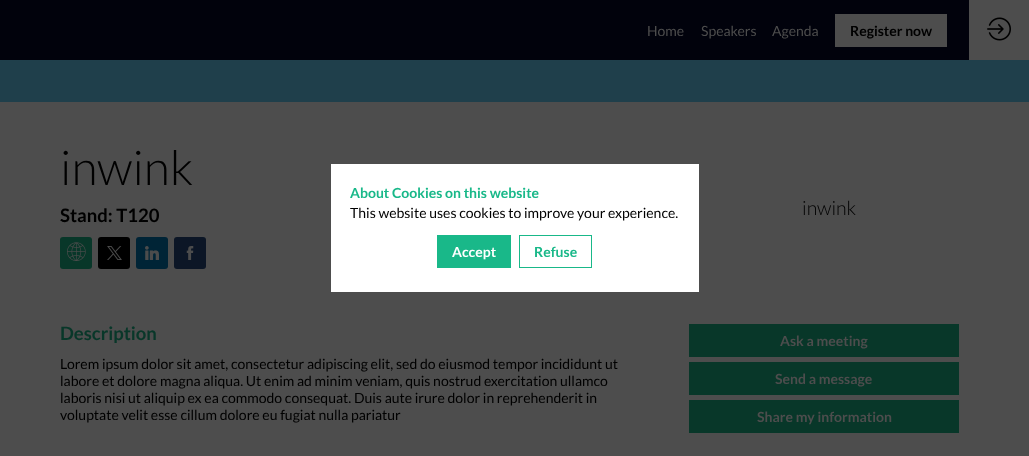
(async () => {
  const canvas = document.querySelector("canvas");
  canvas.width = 1029;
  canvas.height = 456;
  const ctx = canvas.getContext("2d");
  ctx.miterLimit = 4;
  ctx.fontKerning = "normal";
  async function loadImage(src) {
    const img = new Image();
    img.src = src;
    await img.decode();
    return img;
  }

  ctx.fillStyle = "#01020c";
  ctx.fillRect(0, 0, 1029, 456);
  ctx.fillStyle = "#4d4d4d";
  ctx.fillRect(835, 14, 112, 33);
  ctx.fillRect(969, 0, 60, 60);
  ctx.drawImage(await loadImage("img/1.png"), 987, 17, 24, 24);
  ctx.fillStyle = "#1f3f4b";
  ctx.fillRect(0, 60, 1029, 42);
  ctx.fillStyle = "#4d4d4d";
  ctx.fillRect(0, 102, 1029, 354);
  ctx.fillStyle = "#083729";
  ctx.beginPath();
  ctx.roundRect(60, 237, 32, 32, 3);
  ctx.fill();
  ctx.drawImage(await loadImage("img/2.png"), 67, 242, 19, 19);
  ctx.fillStyle = "#000000";
  ctx.beginPath();
  ctx.roundRect(98, 237, 32, 32, 3);
  ctx.fill();
  ctx.drawImage(await loadImage("img/3.png"), 107, 246, 15, 14);
  ctx.fillStyle = "#002436";
  ctx.beginPath();
  ctx.roundRect(136, 237, 32, 32, 3);
  ctx.fill();
  ctx.drawImage(await loadImage("img/4.png"), 145, 246, 14, 14);
  ctx.fillStyle = "#0c1626";
  ctx.beginPath();
  ctx.roundRect(174, 237, 32, 32, 3);
  ctx.fill();
  ctx.drawImage(await loadImage("img/5.png"), 186, 246, 8, 14);
  for (const [x, y, w, h, color] of [
    [689, 324, 270, 33, "#083729"],
    [689, 362, 270, 33, "#083729"],
    [689, 400, 270, 33, "#083729"],
    [331, 164, 368, 128, "#ffffff"],
    [437, 235, 74, 33, "#19b889"],
  ]) {
    ctx.fillStyle = color;
    ctx.fillRect(x, y, w, h);
  }
  ctx.strokeStyle = "#19b889";
  ctx.strokeRect(519.5, 235.5, 72, 32);
  ctx.font = "14px Lato";
  ctx.fillStyle = "#4d4d4d";
  for (const [text, x, y] of [
    ["Home", 647, 36],
    ["Speakers", 701, 36],
    ["Agenda", 772, 36],
  ]) {
    ctx.fillText(text, x, y);
  }
  ctx.font = "bold 14px Lato";
  ctx.fillStyle = "#000000";
  ctx.fillText("Register now", 850, 36);
  ctx.font = "300 48px Lato";
  ctx.fillText("inwink", 60, 185);
  ctx.font = "bold 18.5px Lato";
  ctx.fillText("Stand: T120", 60, 222);
  ctx.font = "300 19.5px Lato";
  ctx.fillText("inwink", 802, 215);
  ctx.font = "bold 18.5px Lato";
  ctx.fillStyle = "#083729";
  ctx.fillText("Description", 60, 340);
  ctx.font = "14px Lato";
  ctx.fillStyle = "#000000";
  for (const [text, x, y] of [
    ["Lorem ipsum dolor sit amet, consectetur adipiscing elit, sed do eiusmod tempor incididunt ut", 60, 369],
    ["labore et dolore magna aliqua. Ut enim ad minim veniam, quis nostrud exercitation ullamco", 60, 386],
    ["laboris nisi ut aliquip ex ea commodo consequat. Duis aute irure dolor in reprehenderit in", 60, 403],
    ["voluptate velit esse cillum dolore eu fugiat nulla pariatur", 60, 420],
  ]) {
    ctx.fillText(text, x, y);
  }
  ctx.font = "bold 14px Lato";
  ctx.fillStyle = "#4d4d4d";
  for (const [text, x, y] of [
    ["Ask a meeting", 780, 346],
    ["Send a message", 775, 384],
    ["Share my information", 757, 422],
  ]) {
    ctx.fillText(text, x, y);
  }
  ctx.fillStyle = "#19b889";
  ctx.fillText("About Cookies on this website", 350, 198);
  ctx.font = "14px Lato";
  ctx.fillStyle = "#000000";
  ctx.fillText("This website uses cookies to improve your experience.", 350, 218);
  ctx.font = "bold 14px Lato";
  ctx.fillStyle = "#ffffff";
  ctx.fillText("Accept", 452, 257);
  ctx.fillStyle = "#19b889";
  ctx.fillText("Refuse", 534, 257);
})();
